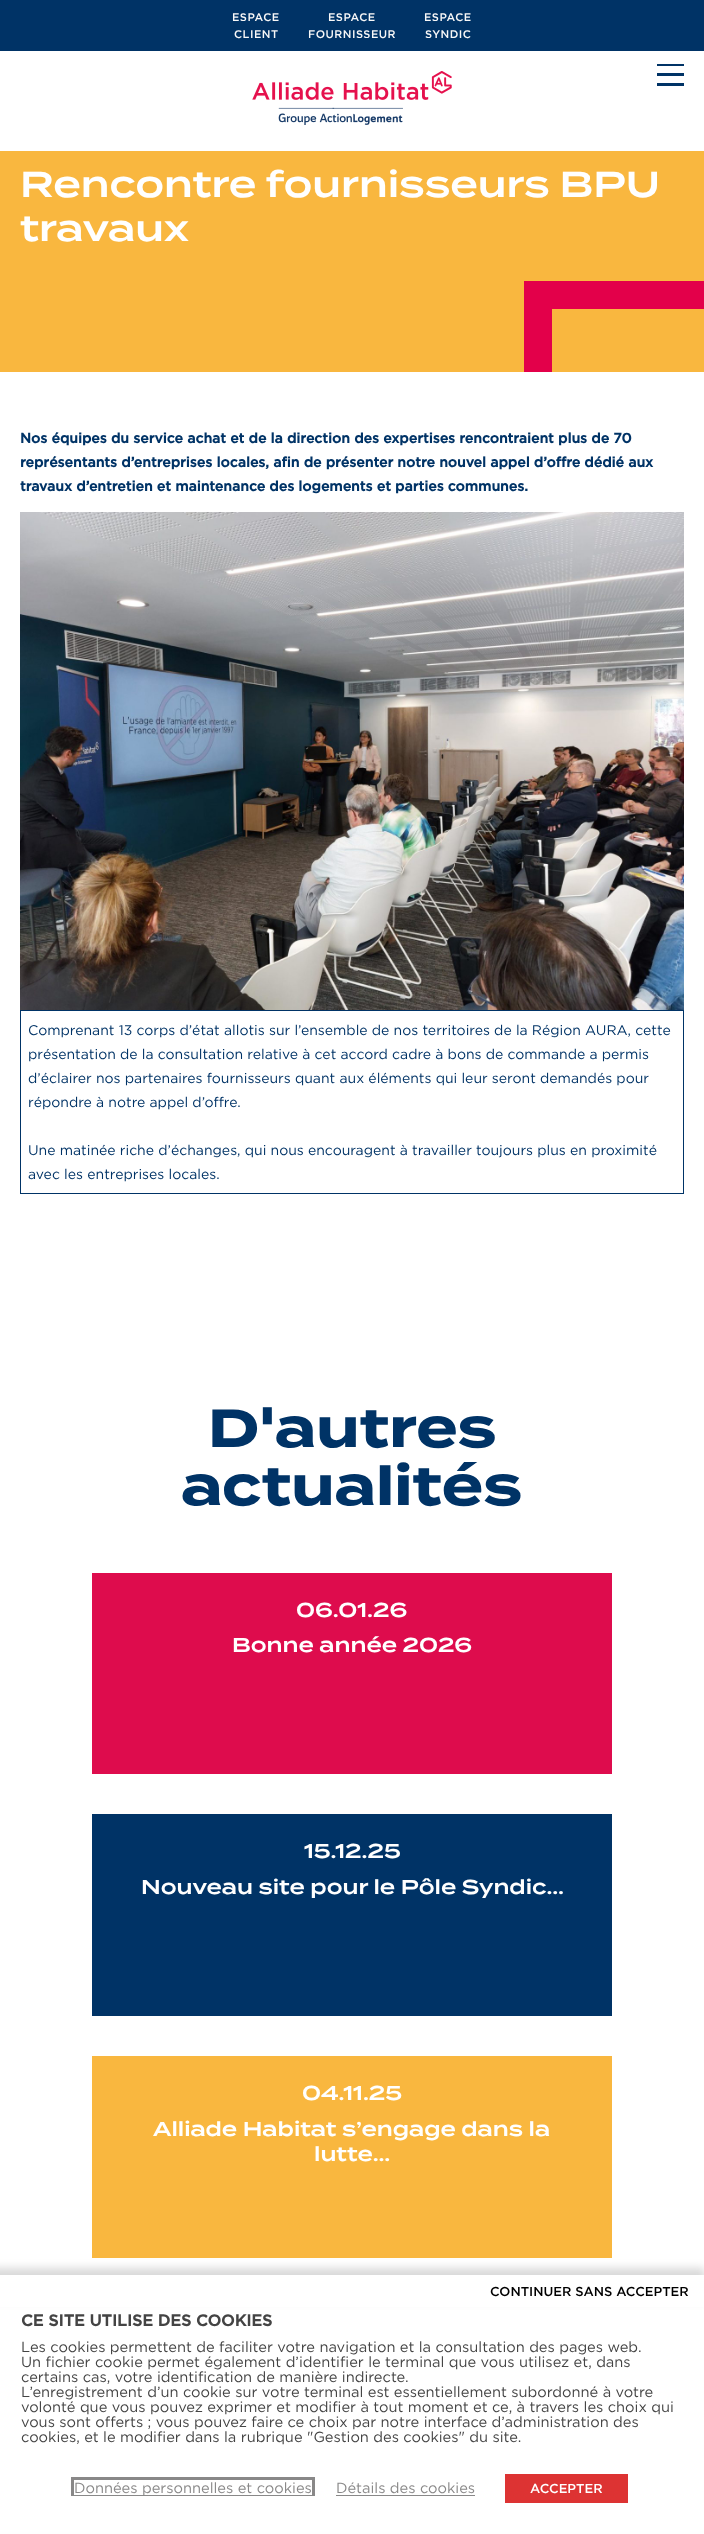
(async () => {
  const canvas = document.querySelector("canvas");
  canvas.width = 704;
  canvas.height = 2534;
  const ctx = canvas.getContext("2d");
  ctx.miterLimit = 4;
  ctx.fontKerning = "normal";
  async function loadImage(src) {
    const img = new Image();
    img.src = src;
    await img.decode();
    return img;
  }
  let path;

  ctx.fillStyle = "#ffffff";
  ctx.fillRect(0, 0, 704, 2534);
  ctx.fillStyle = "#003366";
  ctx.fillRect(0, 0, 704, 51);
  ctx.drawImage(await loadImage("img/1.png"), 252, 71, 200, 54);
  for (const [x, y, w, h, color] of [
    [657, 64, 27, 2, "#003366"],
    [657, 73, 27, 3, "#003366"],
    [657, 83, 27, 3, "#003366"],
    [0, 151, 704, 221, "#f9b73f"],
  ]) {
    ctx.fillStyle = color;
    ctx.fillRect(x, y, w, h);
  }
  ctx.save();
  ctx.beginPath();
  ctx.rect(524, 281, 180, 91);
  ctx.clip();
  path = new Path2D("M538 373V295H704");
  ctx.strokeStyle = "#e3004a";
  ctx.lineWidth = 28;
  ctx.stroke(path);
  ctx.restore();
  ctx.drawImage(await loadImage("img/2.png"), 20, 512, 664, 498);
  for (const [x, y, w, h, color] of [
    [20, 1010, 664, 1, "#003366"],
    [683, 1010, 1, 184, "#003366"],
    [20, 1193, 664, 1, "#003366"],
    [20, 1010, 1, 184, "#003366"],
    [92, 1573, 520, 201, "#de0c4d"],
    [92, 1814, 520, 202, "#003366"],
    [92, 2056, 520, 202, "#f9b73f"],
  ]) {
    ctx.fillStyle = color;
    ctx.fillRect(x, y, w, h);
  }
  ctx.fillStyle = "rgba(0, 0, 0, 0.15)";
  ctx.filter = "blur(4px)";
  ctx.beginPath();
  ctx.rect(-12, 2268, 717, 33);
  ctx.fill();
  ctx.filter = "none";
  for (const [x, y, w, h, color] of [
    [0, 2275, 704, 32, "#ffffff"],
    [71, 2477, 244, 3, "#898888"],
    [312, 2477, 3, 19, "#898888"],
    [71, 2495, 244, 1, "#898888"],
    [71, 2477, 3, 19, "#898888"],
    [336, 2495, 139, 1, "#898888"],
    [505, 2474, 123, 29, "#dd3333"],
  ]) {
    ctx.fillStyle = color;
    ctx.fillRect(x, y, w, h);
  }
  ctx.letterSpacing = "0.5px";
  ctx.font = "500 11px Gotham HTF";
  ctx.fillStyle = "#f8f8f8";
  for (const [text, x, y] of [
    ["ESPACE", 232, 21],
    ["CLIENT", 234, 38],
    ["ESPACE", 328, 21],
    ["FOURNISSEUR", 308, 38],
    ["ESPACE", 424, 21],
    ["SYNDIC", 425, 38],
  ]) {
    ctx.fillText(text, x, y);
  }
  ctx.letterSpacing = "0px";
  ctx.font = "600 36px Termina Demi";
  ctx.fillStyle = "#ffffff";
  ctx.fillText("Rencontre fournisseurs BPU", 20, 197);
  ctx.fillText("travaux", 20, 241);
  ctx.font = "bold 14px Gotham HTF";
  ctx.fillStyle = "#003366";
  for (const [text, x, y] of [
    ["Nos équipes du service achat et de la direction des expertises rencontraient plus de 70", 20, 443],
    ["représentants d’entreprises locales, afin de présenter notre nouvel appel d’offre dédié aux", 20, 467],
    ["travaux d’entretien et maintenance des logements et parties communes.", 20, 491],
  ]) {
    ctx.fillText(text, x, y);
  }
  ctx.font = "14px Gotham HTF";
  for (const [text, x, y] of [
    ["Comprenant 13 corps d’état allotis sur l’ensemble de nos territoires de la Région AURA, cette", 28, 1035],
    ["présentation de la consultation relative à cet accord cadre à bons de commande a permis", 28, 1059],
    ["d’éclairer nos partenaires fournisseurs quant aux éléments qui leur seront demandés pour", 28, 1083],
    ["répondre à notre appel d’offre.", 28, 1107],
    ["Une matinée riche d’échanges, qui nous encouragent à travailler toujours plus en proximité", 28, 1155],
    ["avec les entreprises locales.", 28, 1179],
  ]) {
    ctx.fillText(text, x, y);
  }
  ctx.font = "bold 53.75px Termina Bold";
  ctx.fillText("D'autres", 208, 1447);
  ctx.fillText("actualités", 181, 1505);
  ctx.font = "600 20px Termina Demi";
  ctx.fillStyle = "#ffffff";
  for (const [text, x, y] of [
    ["06.01.26", 296, 1617],
    ["Bonne année 2026", 232, 1652],
    ["15.12.25", 304, 1858],
    ["Nouveau site pour le Pôle Syndic…", 141, 1894],
    ["04.11.25", 302, 2100],
    ["Alliade Habitat s’engage dans la", 153, 2136],
    ["lutte…", 314, 2161],
  ]) {
    ctx.fillText(text, x, y);
  }
  ctx.font = "500 13px Gotham HTF";
  ctx.fillStyle = "#000000";
  ctx.fillText("CONTINUER SANS ACCEPTER", 490, 2296);
  ctx.font = "14.65px Gotham HTF";
  ctx.fillStyle = "#898888";
  ctx.fillText("Données personnelles et cookies", 74, 2493);
  ctx.fillText("Détails des cookies", 336, 2493);
  ctx.font = "500 13px Gotham HTF";
  ctx.fillStyle = "#ffffff";
  ctx.fillText("ACCEPTER", 530, 2493);
  ctx.font = "14.65px Gotham HTF";
  ctx.fillStyle = "#444444";
  for (const [text, x, y] of [
    ["Les cookies permettent de faciliter votre navigation et la consultation des pages web.", 21, 2352],
    ["Un fichier cookie permet également d’identifier le terminal que vous utilisez et, dans", 21, 2367],
    ["certains cas, votre identification de manière indirecte.", 21, 2382],
    ["L’enregistrement d’un cookie sur votre terminal est essentiellement subordonné à votre", 21, 2397],
    ["volonté que vous pouvez exprimer et modifier à tout moment et ce, à travers les choix qui", 21, 2412],
    ["vous sont offerts ; vous pouvez faire ce choix par notre interface d’administration des", 21, 2427],
    ["cookies, et le modifier dans la rubrique \"Gestion des cookies\" du site.", 21, 2442],
  ]) {
    ctx.fillText(text, x, y);
  }
  ctx.font = "bold 16px Gotham HTF";
  ctx.fillText("CE SITE UTILISE DES COOKIES", 21, 2326);
})();
